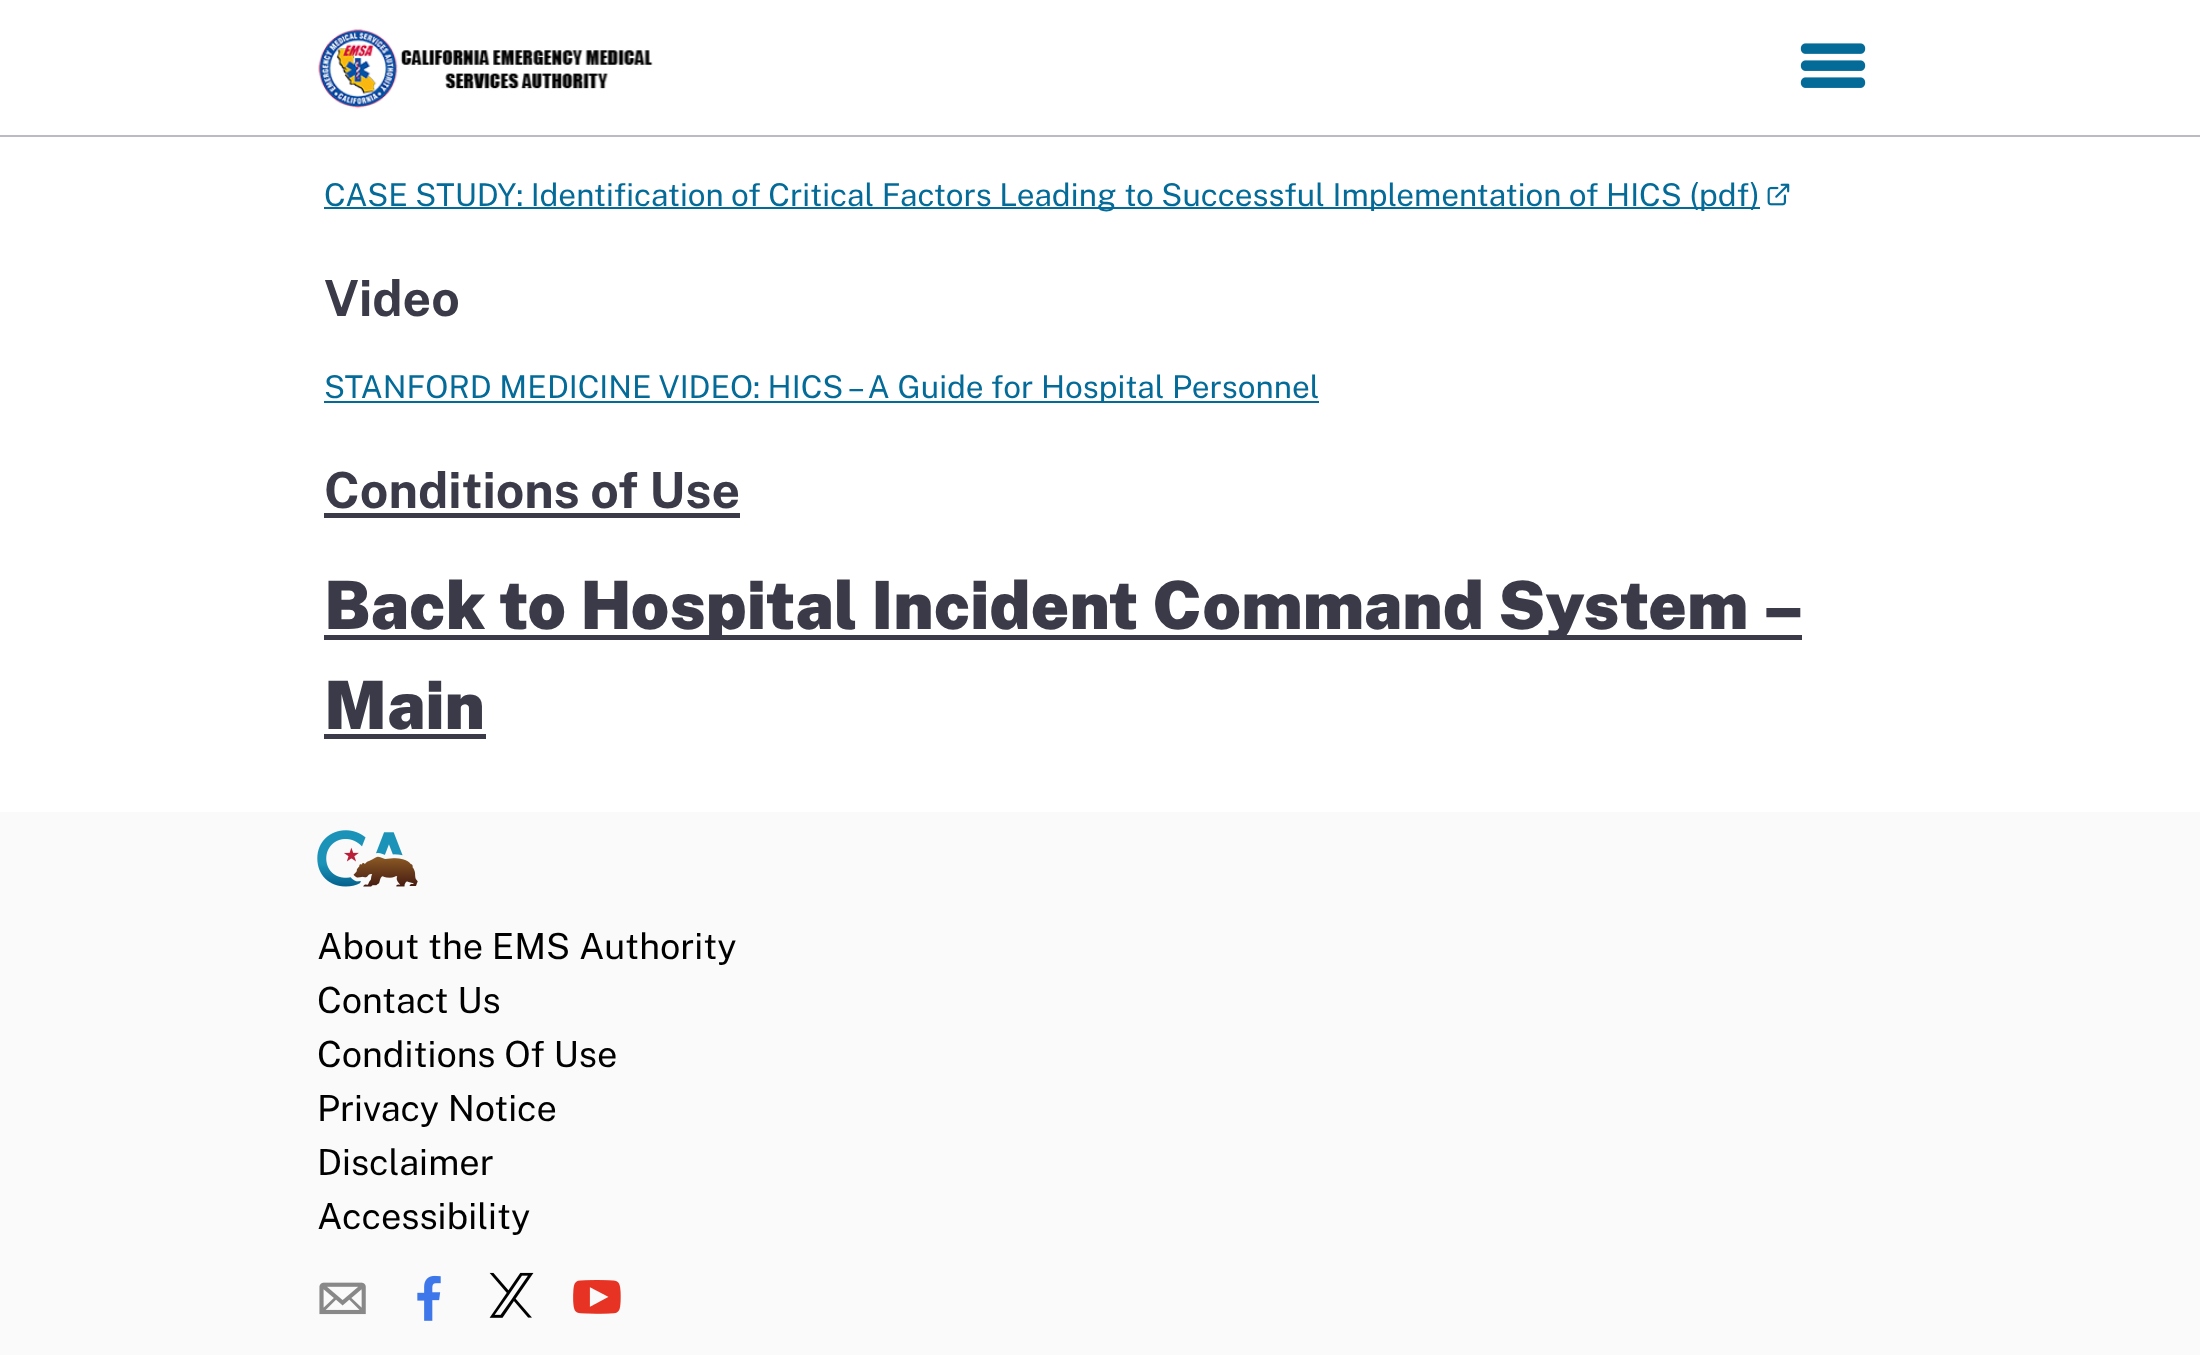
(async () => {
  const canvas = document.querySelector("canvas");
  canvas.width = 2200;
  canvas.height = 1355;
  const ctx = canvas.getContext("2d");
  ctx.miterLimit = 4;
  ctx.fontKerning = "normal";
  async function loadImage(src) {
    const img = new Image();
    img.src = src;
    await img.decode();
    return img;
  }

  ctx.fillStyle = "#ffffff";
  ctx.fillRect(0, 0, 2200, 1355);
  ctx.fillStyle = "#bcbbc1";
  ctx.fillRect(0, 135, 2200, 2);
  ctx.drawImage(await loadImage("img/1.png"), 318, 29, 335, 80);
  ctx.drawImage(await loadImage("img/2.png"), 1800, 43, 66, 45);
  ctx.fillStyle = "#046b99";
  ctx.fillRect(324, 207, 1436, 2);
  ctx.drawImage(await loadImage("img/3.png"), 1767, 183, 23, 23);
  for (const [x, y, w, h, color] of [
    [324, 401, 995, 2, "#046b99"],
    [324, 513, 416, 5, "#3b3a48"],
    [324, 635, 1478, 5, "#3b3a48"],
    [324, 734, 162, 5, "#3b3a48"],
    [0, 812, 2200, 543, "#fafafa"],
  ]) {
    ctx.fillStyle = color;
    ctx.fillRect(x, y, w, h);
  }
  ctx.drawImage(await loadImage("img/4.png"), 317, 830, 101, 57);
  ctx.drawImage(await loadImage("img/5.png"), 319, 1282, 47, 33);
  ctx.drawImage(await loadImage("img/6.png"), 417, 1275, 24, 46);
  ctx.drawImage(await loadImage("img/7.png"), 489, 1272, 45, 46);
  ctx.drawImage(await loadImage("img/8.png"), 573, 1280, 48, 34);
  ctx.font = "31.5px Public Sans";
  ctx.fillStyle = "#046b99";
  ctx.fillText("CASE STUDY: Identification of Critical Factors Leading to Successful Implementation of HICS (pdf)", 324, 206);
  ctx.font = "bold 49.75px Public Sans";
  ctx.fillStyle = "#3b3a48";
  ctx.fillText("Video", 324, 316);
  ctx.font = "31.5px Public Sans";
  ctx.fillStyle = "#046b99";
  ctx.fillText("STANFORD MEDICINE VIDEO: HICS – A Guide for Hospital Personnel", 324, 398);
  ctx.font = "bold 49.75px Public Sans";
  ctx.fillStyle = "#3b3a48";
  ctx.fillText("Conditions of Use", 324, 508);
  ctx.font = "900 66.6px Public Sans";
  ctx.fillText("Back to Hospital Incident Command System –", 324, 629);
  ctx.fillText("Main", 324, 729);
  ctx.font = "36px Public Sans";
  ctx.fillStyle = "#000000";
  for (const [text, x, y] of [
    ["About the EMS Authority", 317, 959],
    ["Contact Us", 317, 1013],
    ["Conditions Of Use", 317, 1067],
    ["Privacy Notice", 317, 1121],
    ["Disclaimer", 317, 1175],
    ["Accessibility", 317, 1229],
  ]) {
    ctx.fillText(text, x, y);
  }
})();
